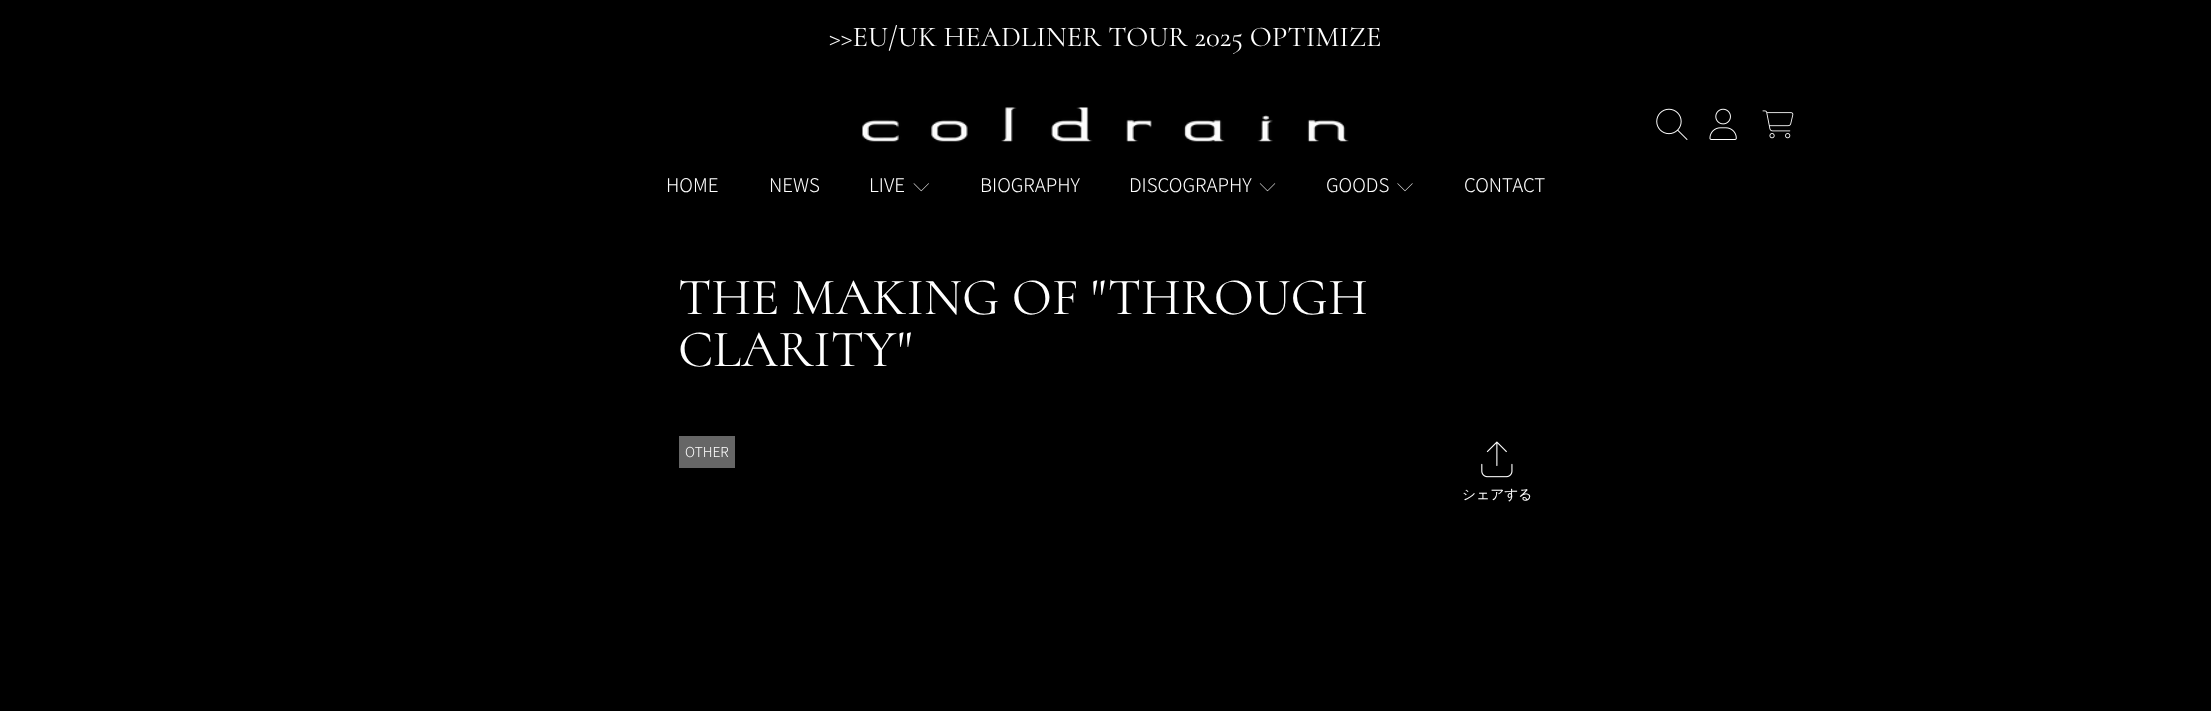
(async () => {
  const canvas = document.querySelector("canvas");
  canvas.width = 2211;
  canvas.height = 711;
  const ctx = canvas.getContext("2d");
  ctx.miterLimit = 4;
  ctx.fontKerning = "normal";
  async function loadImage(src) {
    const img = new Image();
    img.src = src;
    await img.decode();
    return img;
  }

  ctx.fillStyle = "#000000";
  ctx.fillRect(0, 0, 2211, 711);
  ctx.drawImage(await loadImage("img/1.png"), 862, 107, 487, 35);
  ctx.drawImage(await loadImage("img/2.png"), 1656, 108, 32, 32);
  ctx.drawImage(await loadImage("img/3.png"), 1709, 108, 28, 32);
  ctx.drawImage(await loadImage("img/4.png"), 1762, 110, 32, 29);
  ctx.drawImage(await loadImage("img/5.png"), 913, 183, 16, 9);
  ctx.drawImage(await loadImage("img/6.png"), 1259, 183, 17, 9);
  ctx.drawImage(await loadImage("img/7.png"), 1397, 183, 16, 9);
  ctx.fillStyle = "#666666";
  ctx.fillRect(679, 436, 56, 32);
  ctx.drawImage(await loadImage("img/8.png"), 1481, 441, 32, 37);
  ctx.font = "28.8px Cormorant";
  ctx.fillStyle = "#ffffff";
  ctx.fillText(">>EU/UK HEADLINER TOUR 2025 OPTIMIZE", 829, 46);
  ctx.font = "300 18.75px Noto Sans JP";
  for (const [text, x, y] of [
    ["HOME", 666, 192],
    ["NEWS", 769, 192],
    ["LIVE", 869, 192],
    ["BIOGRAPHY", 980, 192],
    ["DISCOGRAPHY", 1129, 192],
    ["GOODS", 1326, 192],
    ["CONTACT", 1464, 192],
  ]) {
    ctx.fillText(text, x, y);
  }
  ctx.font = "52.5px Cormorant";
  ctx.fillText("THE MAKING OF \"THROUGH", 678, 314);
  ctx.fillText("CLARITY\"", 678, 366);
  ctx.font = "300 13.75px Noto Sans JP";
  ctx.fillText("OTHER", 685, 457);
  ctx.font = "500 13.75px WenQuanYi Zen Hei";
  ctx.fillText("シェアする", 1462, 499);
})();
